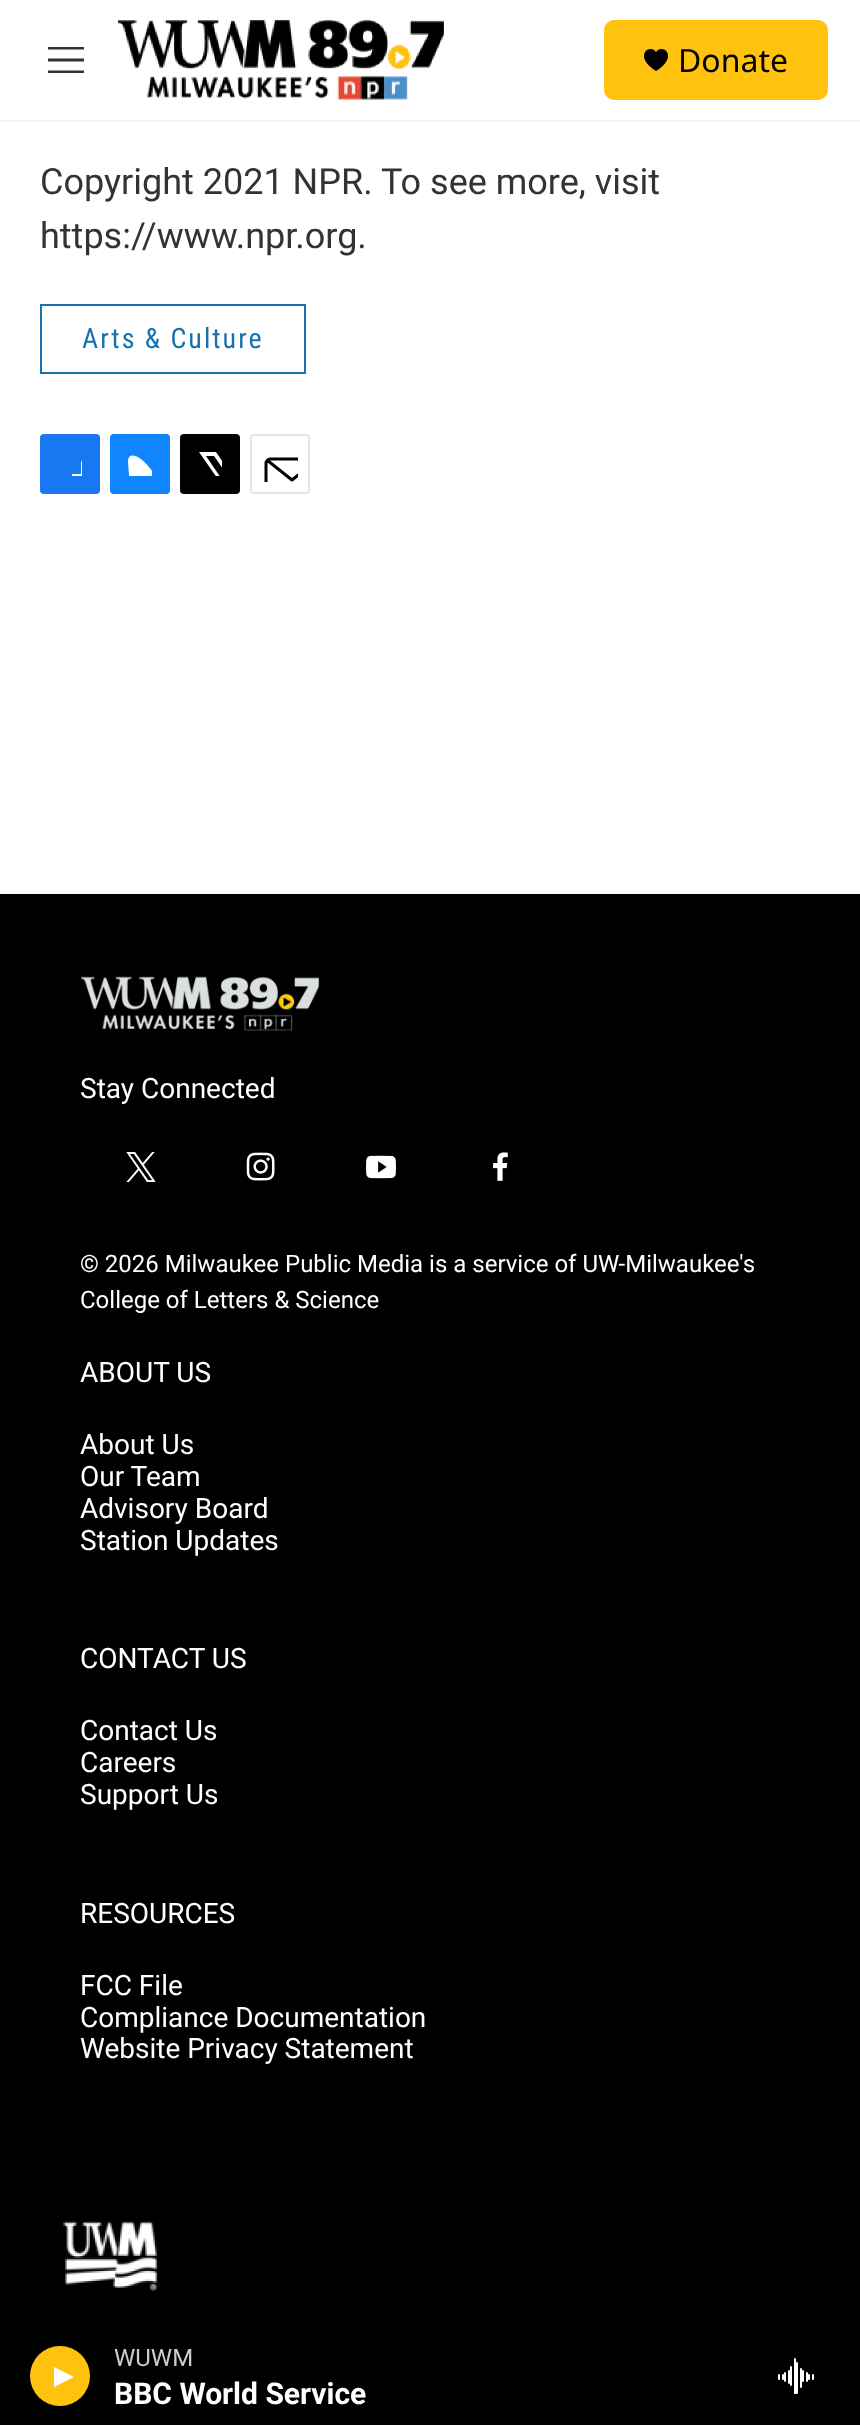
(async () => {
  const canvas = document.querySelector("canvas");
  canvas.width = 860;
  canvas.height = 2425;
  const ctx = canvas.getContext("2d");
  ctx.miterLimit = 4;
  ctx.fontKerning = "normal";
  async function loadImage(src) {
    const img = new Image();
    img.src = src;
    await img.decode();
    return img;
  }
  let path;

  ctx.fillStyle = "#ffffff";
  ctx.fillRect(0, 0, 860, 2425);
  ctx.fillStyle = "#f5f5f5";
  ctx.fillRect(0, 120, 860, 2);
  ctx.fillStyle = "#333333";
  path = new Path2D("M48 61.5V58.5H84V61.5ZM48 49.5V47H84V49.5ZM48 73V70.5H84V73Z");
  ctx.fill(path, "evenodd");
  ctx.drawImage(await loadImage("img/1.png"), 118, 20, 326, 80);
  ctx.fillStyle = "#ffc20e";
  ctx.beginPath();
  ctx.roundRect(604, 20, 224, 80, 10);
  ctx.fill();
  ctx.drawImage(await loadImage("img/2.png"), 644, 49, 24, 22);
  ctx.fillStyle = "#000000";
  ctx.fillRect(0, 894, 860, 1531);
  ctx.fillStyle = "#ffc20e";
  ctx.beginPath();
  ctx.arc(60, 2376, 30, 0, Math.PI * 2);
  ctx.fill();
  ctx.fillStyle = "#ffffff";
  path = new Path2D("M54 2367L74 2377L54 2387Z");
  ctx.fill(path);
  ctx.drawImage(await loadImage("img/3.png"), 778, 2358, 36, 36);
  ctx.strokeStyle = "#1772b0";
  ctx.lineWidth = 2;
  ctx.strokeRect(41, 305, 264, 68);
  ctx.fillStyle = "#1778f2";
  ctx.beginPath();
  ctx.roundRect(40, 434, 60, 60, 4);
  ctx.fill();
  ctx.save();
  ctx.beginPath();
  ctx.rect(58, 452, 24, 24);
  ctx.clip();
  ctx.fillStyle = "#ffffff";
  path = new Path2D("M91 494H81V484H72V474H81V463C83 454 92 452 100 453V462C89 462 91 465 91 474H100V479L99 484H91Z");
  ctx.fill(path);
  ctx.restore();
  ctx.fillStyle = "#1185fe";
  ctx.beginPath();
  ctx.roundRect(110, 434, 60, 60, 4);
  ctx.fill();
  ctx.drawImage(await loadImage("img/4.png"), 128, 455, 24, 21);
  ctx.fillStyle = "#000000";
  ctx.beginPath();
  ctx.roundRect(180, 434, 60, 60, 4);
  ctx.fill();
  ctx.save();
  ctx.beginPath();
  ctx.rect(198, 452, 24, 24);
  ctx.clip();
  ctx.fillStyle = "#ffffff";
  path = new Path2D("M234 477L240 486C240 488 241 491 239 492L214 456H206L232 494H227L224 489L220 494H214L222 485L199 452H216L231 474L240 464V470Z");
  ctx.fill(path);
  ctx.restore();
  ctx.beginPath();
  ctx.roundRect(251, 435, 58, 58, 3);
  ctx.strokeStyle = "#e6e6e6";
  ctx.stroke();
  ctx.save();
  ctx.beginPath();
  ctx.rect(262, 446, 36, 36);
  ctx.clip();
  path = new Path2D("M318 490C318 492 316 493.5 314 493.5H270C268 493.5 266 492 266 490V463C266 461 268 459 270 459H314C316 459 318 461 318 463ZM316.5 460.5L292 480L267.5 460.5");
  ctx.strokeStyle = "#000000";
  ctx.lineWidth = 3;
  ctx.lineCap = "round";
  ctx.lineJoin = "round";
  ctx.stroke(path);
  ctx.restore();
  ctx.drawImage(await loadImage("img/5.png"), 81, 976, 239, 55);
  ctx.drawImage(await loadImage("img/6.png"), 126, 1152, 30, 30);
  ctx.drawImage(await loadImage("img/7.png"), 246, 1152, 29, 29);
  ctx.drawImage(await loadImage("img/8.png"), 366, 1155, 30, 24);
  ctx.drawImage(await loadImage("img/9.png"), 493, 1152, 15, 29);
  ctx.drawImage(await loadImage("img/10.png"), 63, 2221, 95, 70);
  ctx.font = "32px Noto Sans";
  ctx.fillText("Donate", 678, 72);
  ctx.font = "24px Roboto";
  ctx.fillStyle = "#cccccc";
  ctx.fillText("WUWM", 114, 2366);
  ctx.font = "bold 30px Roboto";
  ctx.fillStyle = "#ffffff";
  ctx.fillText("BBC World Service", 114, 2404);
  ctx.font = "36px Roboto";
  ctx.fillStyle = "#333333";
  ctx.fillText("Copyright 2021 NPR. To see more, visit", 40, 194);
  ctx.fillText("https://www.npr.org.", 40, 248);
  ctx.letterSpacing = "2px";
  ctx.font = "28px Roboto Condensed";
  ctx.fillStyle = "#1772b0";
  ctx.fillText("Arts & Culture", 82, 348);
  ctx.letterSpacing = "0px";
  ctx.font = "28px Roboto";
  ctx.fillStyle = "#ffffff";
  ctx.fillText("Stay Connected", 80, 1098);
  ctx.font = "24px Roboto";
  ctx.fillText("© 2026 Milwaukee Public Media is a service of UW-Milwaukee's", 80, 1272);
  ctx.fillText("College of Letters & Science", 80, 1308);
  ctx.font = "28px Roboto";
  for (const [text, x, y] of [
    ["ABOUT US", 80, 1382],
    ["About Us", 80, 1454],
    ["Our Team", 80, 1486],
    ["Advisory Board", 80, 1518],
    ["Station Updates", 80, 1550],
    ["CONTACT US", 80, 1668],
    ["Contact Us", 80, 1740],
    ["Careers", 80, 1772],
    ["Support Us", 80, 1804],
    ["RESOURCES", 80, 1923],
    ["FCC File", 80, 1995],
    ["Compliance Documentation", 80, 2027],
    ["Website Privacy Statement", 80, 2058],
  ]) {
    ctx.fillText(text, x, y);
  }
})();
